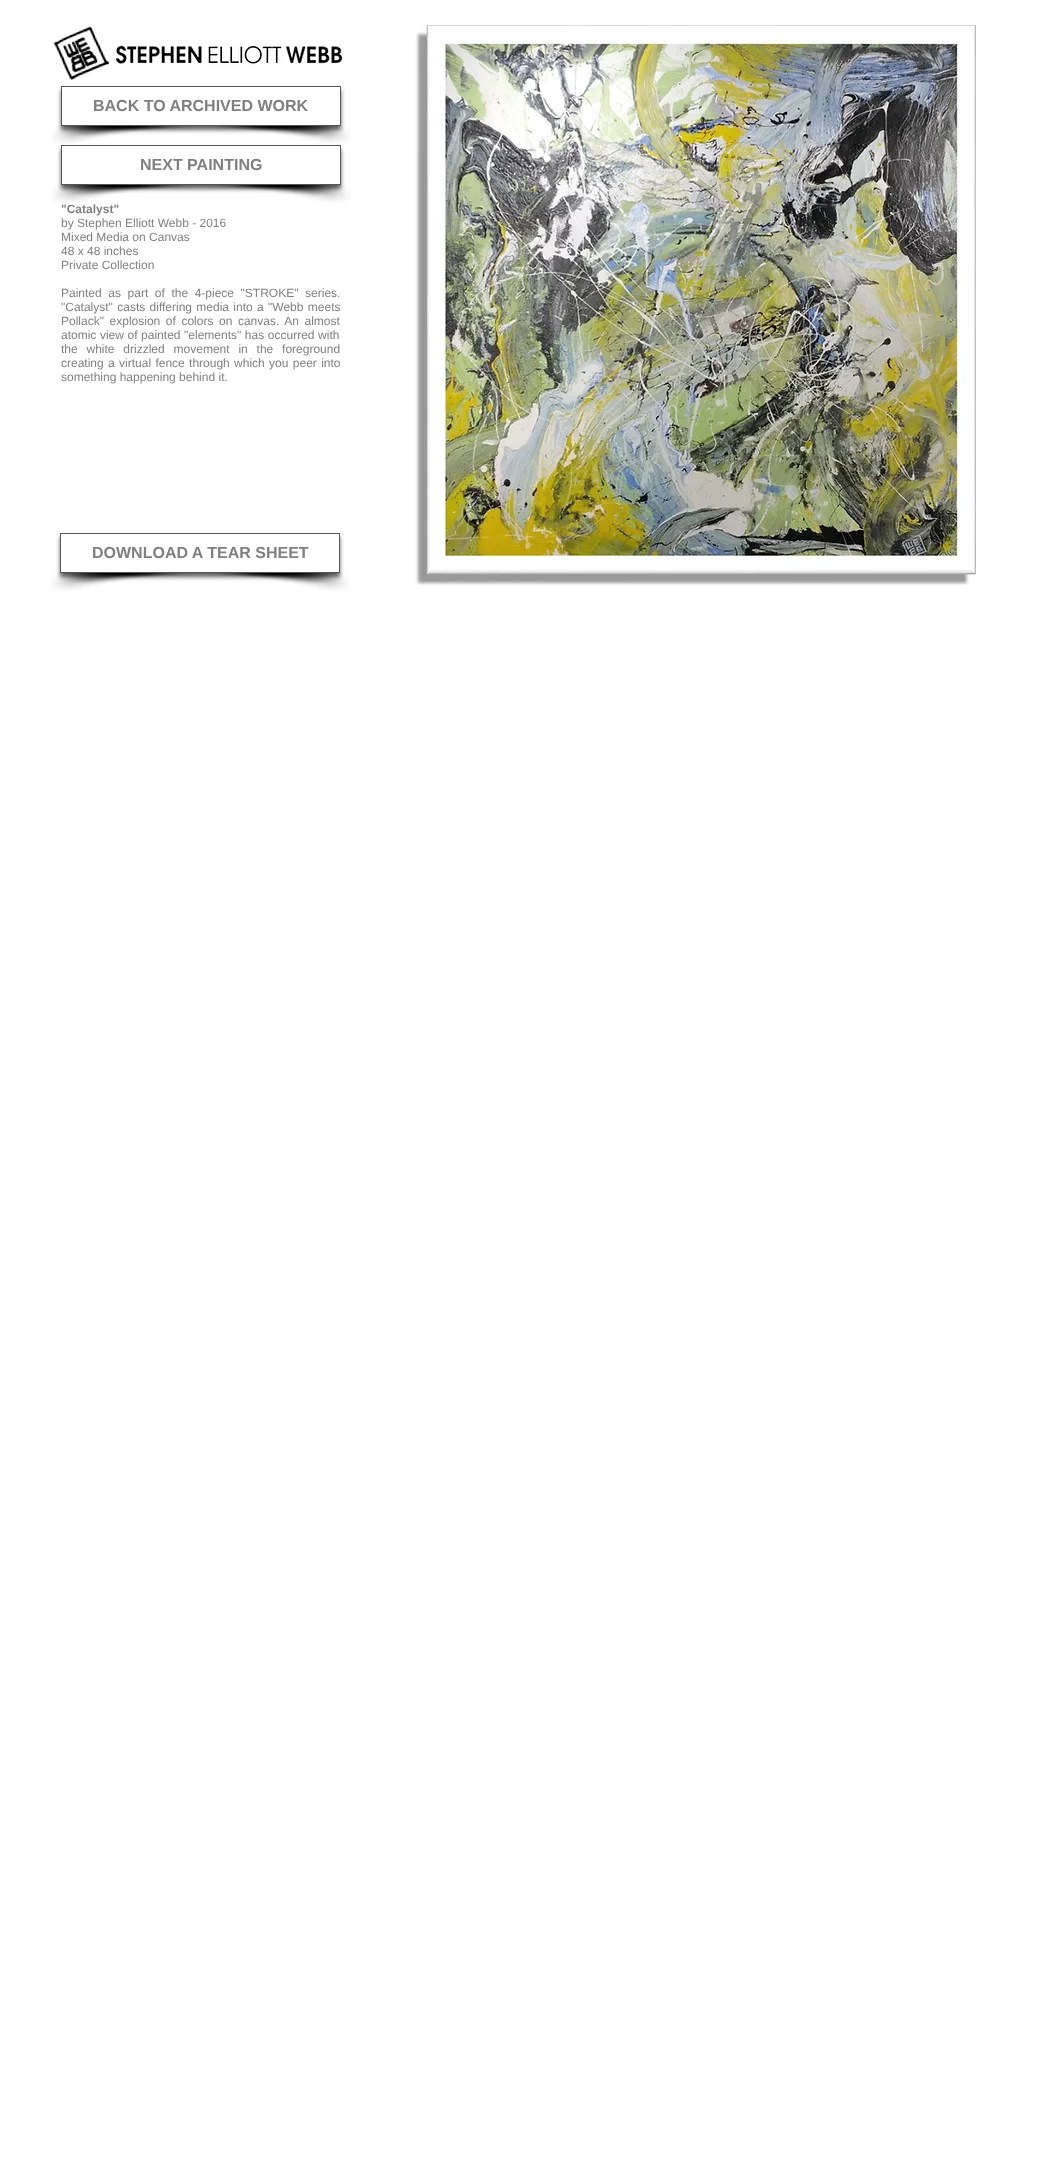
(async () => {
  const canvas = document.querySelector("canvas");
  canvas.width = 1062;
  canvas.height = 2159;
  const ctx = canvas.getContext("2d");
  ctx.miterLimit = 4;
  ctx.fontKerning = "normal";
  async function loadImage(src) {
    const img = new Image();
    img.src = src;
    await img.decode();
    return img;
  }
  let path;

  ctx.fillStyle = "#ffffff";
  ctx.fillRect(0, 0, 1062, 2159);
  ctx.drawImage(await loadImage("img/1.png"), 53, 26, 57, 54);
  ctx.drawImage(await loadImage("img/2.png"), 115, 44, 228, 22);
  ctx.drawImage(await loadImage("img/3.png"), 415, 25, 561, 561);
  ctx.drawImage(await loadImage("img/4.png"), 52, 126, 154, 18);
  ctx.drawImage(await loadImage("img/5.png"), 196, 126, 154, 18);
  ctx.save();
  path = new Path2D("M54 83H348V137H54ZM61 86H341V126H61Z");
  ctx.clip(path, "evenodd");
  ctx.fillStyle = "rgba(0, 0, 0, 0.6)";
  ctx.filter = "blur(2px)";
  ctx.beginPath();
  ctx.rect(61, 90, 280, 40);
  ctx.fill();
  ctx.filter = "none";
  ctx.restore();
  ctx.strokeStyle = "#555555";
  ctx.strokeRect(61.5, 86.5, 279, 39);
  ctx.drawImage(await loadImage("img/4.png"), 52, 185, 154, 18);
  ctx.drawImage(await loadImage("img/5.png"), 196, 185, 154, 18);
  ctx.save();
  path = new Path2D("M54 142H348V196H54ZM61 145H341V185H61Z");
  ctx.clip(path, "evenodd");
  ctx.fillStyle = "rgba(0, 0, 0, 0.6)";
  ctx.filter = "blur(2px)";
  ctx.beginPath();
  ctx.rect(61, 149, 280, 40);
  ctx.fill();
  ctx.filter = "none";
  ctx.restore();
  ctx.strokeRect(61.5, 145.5, 279, 39);
  ctx.drawImage(await loadImage("img/4.png"), 51, 573, 154, 18);
  ctx.drawImage(await loadImage("img/5.png"), 195, 573, 154, 18);
  ctx.save();
  path = new Path2D("M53 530H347V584H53ZM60 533H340V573H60Z");
  ctx.clip(path, "evenodd");
  ctx.fillStyle = "rgba(0, 0, 0, 0.6)";
  ctx.filter = "blur(2px)";
  ctx.beginPath();
  ctx.rect(60, 537, 280, 40);
  ctx.fill();
  ctx.filter = "none";
  ctx.restore();
  ctx.strokeRect(60.5, 533.5, 279, 39);
  ctx.font = "bold 16px Liberation Sans";
  ctx.fillStyle = "#808080";
  ctx.fillText("BACK TO ARCHIVED WORK", 93, 111);
  ctx.fillText("NEXT PAINTING", 140, 170);
  ctx.font = "bold 12px Liberation Sans";
  ctx.fillText("\"Catalyst\"", 61, 213);
  ctx.font = "12px Liberation Sans";
  for (const [text, x, y] of [
    ["by Stephen Elliott Webb - 2016", 61, 227],
    ["Mixed Media on Canvas", 61, 241],
    ["48 x 48 inches", 61, 255],
    ["Private Collection", 61, 269],
  ]) {
    ctx.fillText(text, x, y);
  }
  ctx.wordSpacing = "3.25px";
  ctx.fillText("Painted as part of the 4-piece \"STROKE\" series.", 61, 297);
  ctx.wordSpacing = "1px";
  ctx.fillText("\"Catalyst\" casts differing media into a \"Webb meets", 61, 311);
  ctx.wordSpacing = "2.25px";
  ctx.fillText("Pollack\" explosion of colors on canvas. An almost", 61, 325);
  ctx.wordSpacing = "0.25px";
  ctx.fillText("atomic view of painted \"elements\" has occurred with", 61, 339);
  ctx.wordSpacing = "5.5px";
  ctx.fillText("the white drizzled movement in the foreground", 61, 353);
  ctx.wordSpacing = "1px";
  ctx.fillText("creating a virtual fence through which you peer into", 61, 367);
  ctx.wordSpacing = "0px";
  ctx.fillText("something happening behind it.", 61, 381);
  ctx.font = "bold 16px Liberation Sans";
  ctx.fillText("DOWNLOAD A TEAR SHEET", 92, 558);
})();
